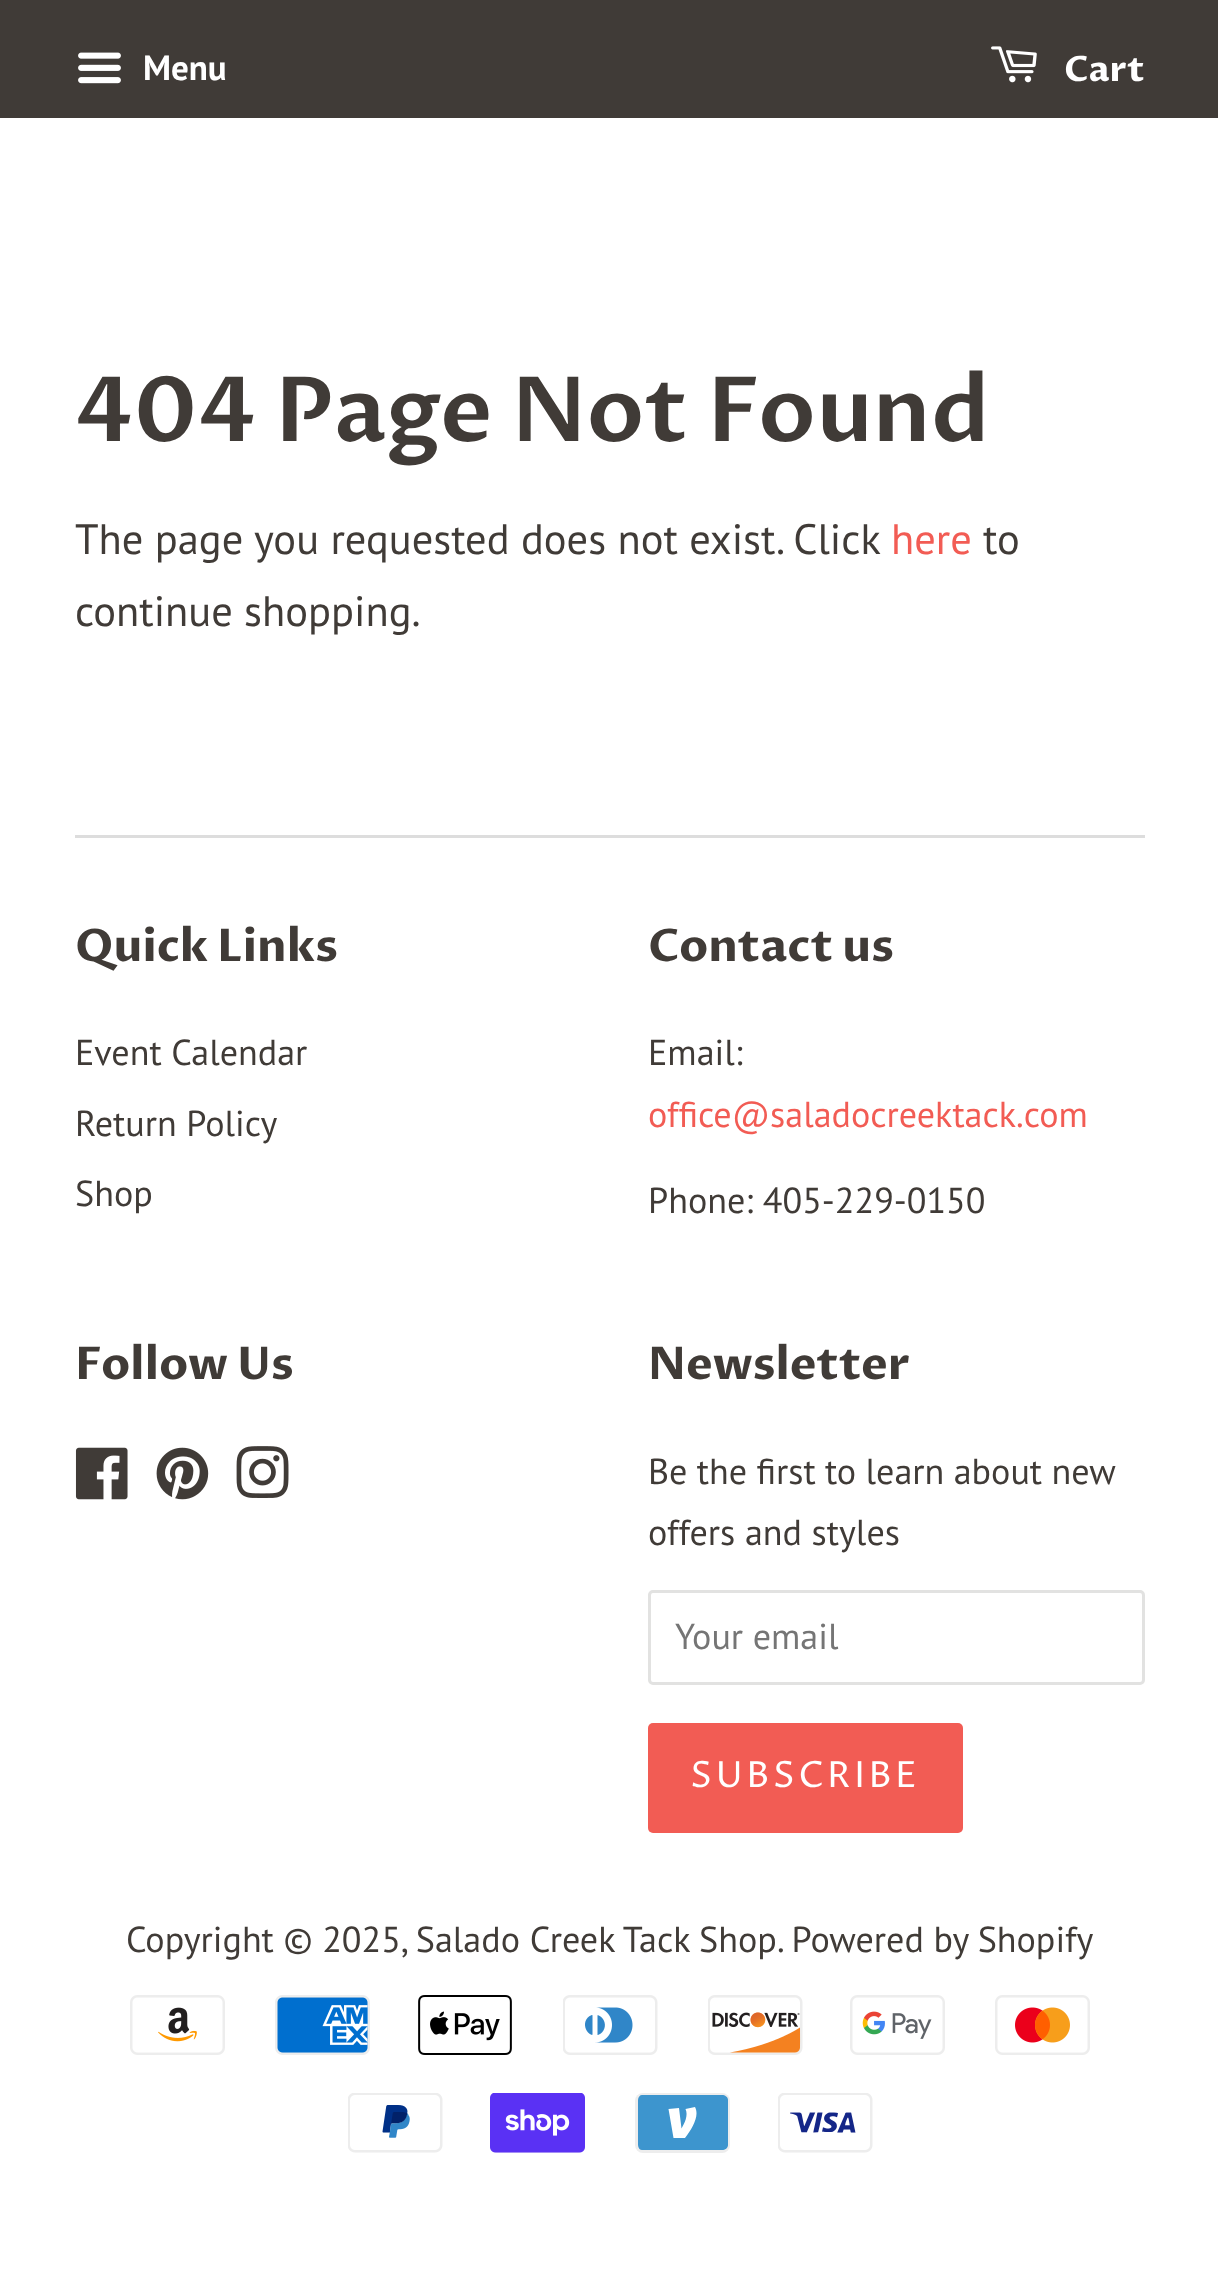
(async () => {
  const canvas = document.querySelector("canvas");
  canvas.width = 1218;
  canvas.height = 2287;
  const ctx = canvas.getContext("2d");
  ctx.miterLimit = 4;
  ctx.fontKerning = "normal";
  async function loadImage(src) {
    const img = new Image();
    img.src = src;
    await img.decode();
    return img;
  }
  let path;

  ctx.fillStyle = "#ffffff";
  ctx.fillRect(0, 0, 1218, 2287);
  ctx.fillStyle = "#403b37";
  ctx.fillRect(0, 0, 1218, 118);
  ctx.drawImage(await loadImage("img/1.png"), 78, 52, 43, 32);
  ctx.drawImage(await loadImage("img/2.png"), 991, 46, 46, 37);
  ctx.fillStyle = "#dddddd";
  ctx.fillRect(75, 835, 1070, 3);
  ctx.drawImage(await loadImage("img/3.png"), 75, 1447, 53, 53);
  ctx.drawImage(await loadImage("img/4.png"), 156, 1447, 53, 53);
  ctx.drawImage(await loadImage("img/5.png"), 236, 1446, 53, 52);
  ctx.beginPath();
  ctx.roundRect(649.5, 1591.5, 494, 92, 3.5);
  ctx.strokeStyle = "#e2e2e1";
  ctx.lineWidth = 3;
  ctx.stroke();
  ctx.fillStyle = "#f25c54";
  ctx.beginPath();
  ctx.roundRect(648, 1723, 315, 110, 5);
  ctx.fill();
  ctx.drawImage(await loadImage("img/6.png"), 130, 1995, 95, 60);
  ctx.drawImage(await loadImage("img/7.png"), 275, 1995, 95, 60);
  ctx.drawImage(await loadImage("img/8.png"), 418, 1995, 94, 60);
  ctx.drawImage(await loadImage("img/9.png"), 563, 1995, 95, 60);
  ctx.drawImage(await loadImage("img/10.png"), 708, 1995, 95, 60);
  ctx.drawImage(await loadImage("img/11.png"), 850, 1995, 95, 60);
  ctx.drawImage(await loadImage("img/12.png"), 995, 1995, 95, 60);
  ctx.drawImage(await loadImage("img/13.png"), 348, 2093, 95, 60);
  ctx.drawImage(await loadImage("img/14.png"), 490, 2093, 95, 60);
  ctx.fillStyle = "#ededed";
  ctx.beginPath();
  ctx.roundRect(635, 2093, 95, 60, 8);
  ctx.fill();
  ctx.fillStyle = "#3d95ce";
  path = new Path2D("M722 2095C725 2095 728 2097 728 2100V2145C728 2148 725 2150 722 2150H642C640 2150 638 2148 638 2145V2100C638 2097 640 2095 642 2095H722");
  ctx.fill(path, "evenodd");
  ctx.fillStyle = "#ffffff";
  path = new Path2D("M696.5 2113.5C696.5 2121 690.5 2131 685 2138H673.5L668.5 2109L679 2108L681.5 2128.5C684.5 2123 688.5 2115.5 685.5 2109L695 2107C696 2109 696.5 2111 696.5 2113.5Z");
  ctx.fill(path);
  ctx.drawImage(await loadImage("img/15.png"), 778, 2093, 95, 60);
  ctx.font = "bold 35px PT Sans";
  ctx.fillText("Menu", 143, 80);
  ctx.font = "bold 35px Proza Libre";
  ctx.fillText("Cart", 1064, 81);
  ctx.font = "600 90px Proza Libre";
  ctx.fillStyle = "#403b37";
  ctx.fillText("404 Page Not Found", 75, 441);
  ctx.font = "42.5px PT Sans";
  ctx.fillText("The page you requested does not exist. Click", 75, 554);
  ctx.fillStyle = "#f25c54";
  ctx.fillText("here", 891, 554);
  ctx.fillStyle = "#403b37";
  ctx.fillText("to", 983, 554);
  ctx.fillText("continue shopping.", 75, 626);
  ctx.font = "bold 45px Proza Libre";
  ctx.fillText("Quick Links", 75, 961);
  ctx.font = "36.1px PT Sans";
  for (const [text, x, y] of [
    ["Event Calendar", 75, 1065],
    ["Return Policy", 75, 1136],
    ["Shop", 75, 1206],
  ]) {
    ctx.fillText(text, x, y);
  }
  ctx.font = "bold 45px Proza Libre";
  ctx.fillText("Contact us", 648, 961);
  ctx.font = "36.1px PT Sans";
  ctx.fillText("Email:", 648, 1065);
  ctx.fillStyle = "#f25c54";
  ctx.fillText("office@saladocreektack.com", 648, 1127);
  ctx.fillStyle = "#403b37";
  ctx.fillText("Phone: 405-229-0150", 648, 1213);
  ctx.font = "bold 45px Proza Libre";
  ctx.fillText("Follow Us", 75, 1379);
  ctx.fillText("Newsletter", 648, 1379);
  ctx.wordSpacing = "-0.25px";
  ctx.font = "36.1px PT Sans";
  ctx.fillText("Be the first to learn about new", 648, 1484);
  ctx.wordSpacing = "0px";
  ctx.fillText("offers and styles", 648, 1545);
  ctx.fillStyle = "#757575";
  ctx.fillText("Your email", 675, 1649);
  ctx.letterSpacing = "3.5px";
  ctx.font = "36.1px Proza Libre";
  ctx.fillStyle = "#ffffff";
  ctx.fillText("SUBSCRIBE", 690, 1787);
  ctx.letterSpacing = "0px";
  ctx.font = "36.1px PT Sans";
  ctx.fillStyle = "#403b37";
  ctx.fillText("Copyright © 2025, Salado Creek Tack Shop", 126, 1952);
  ctx.fillText(". Powered by Shopify", 777, 1952);
})();
